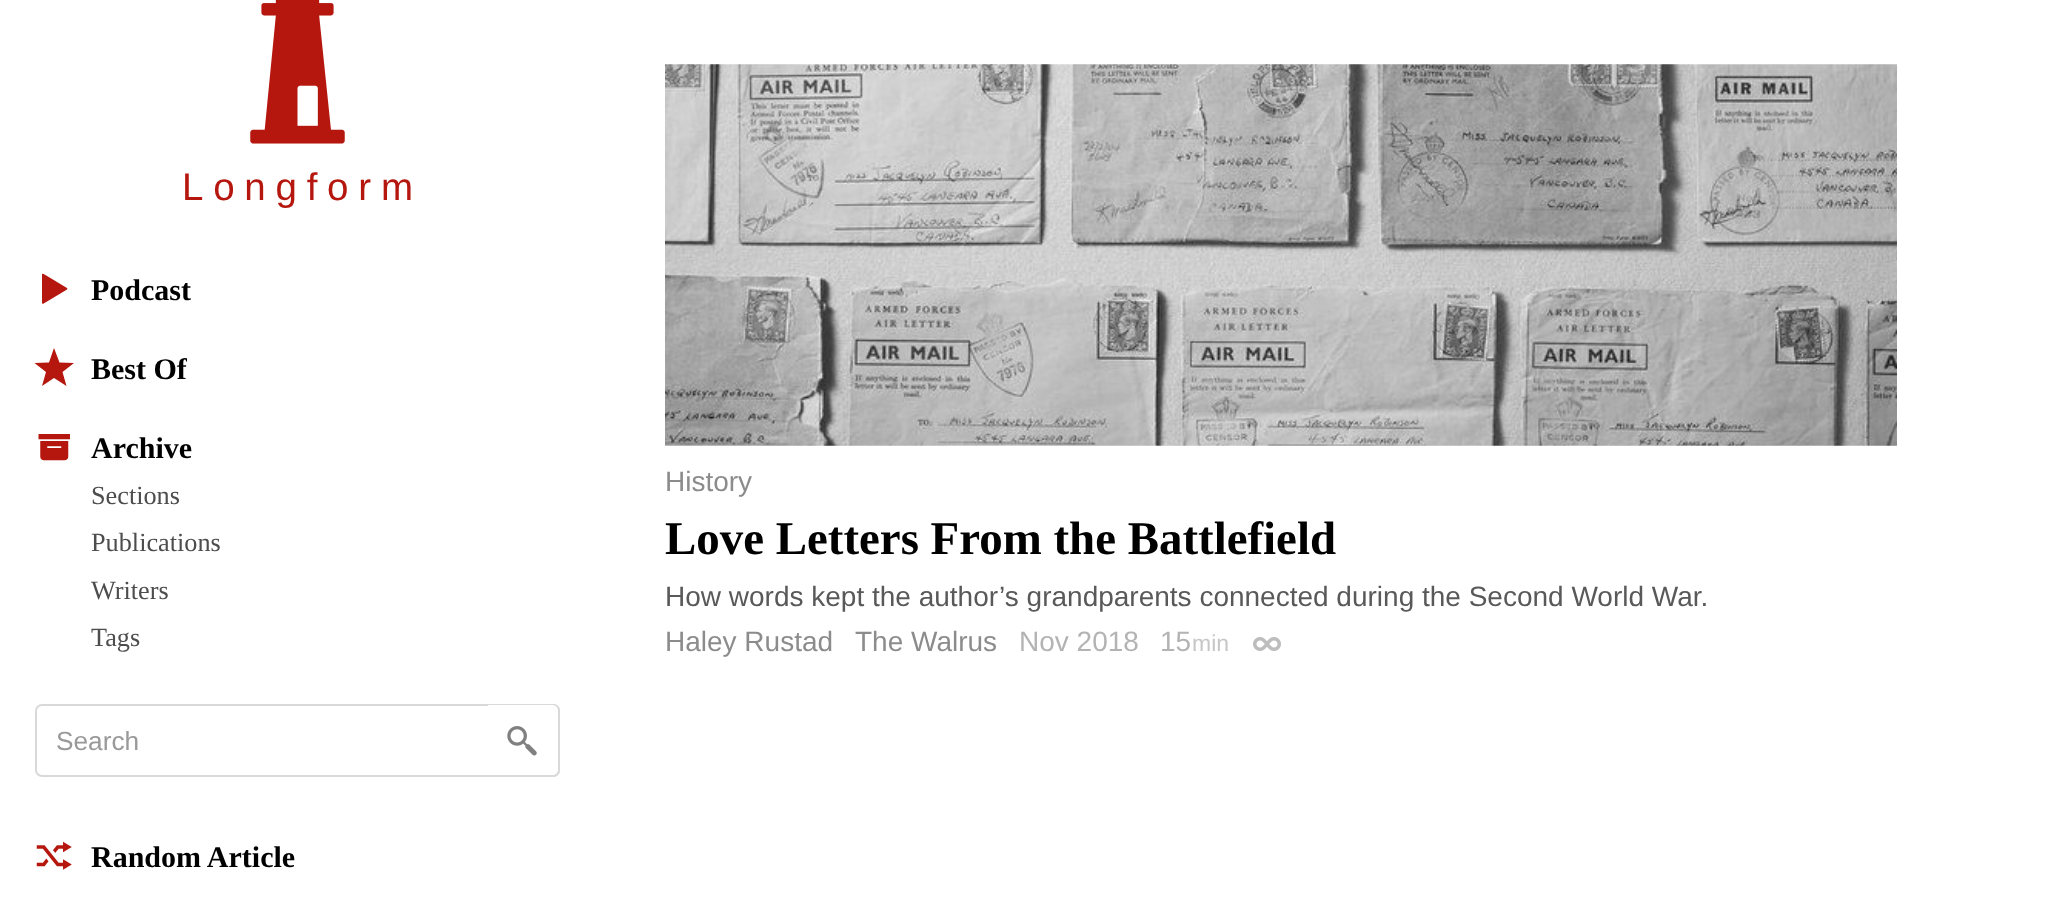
(async () => {
  const canvas = document.querySelector("canvas");
  canvas.width = 2059;
  canvas.height = 910;
  const ctx = canvas.getContext("2d");
  ctx.miterLimit = 4;
  ctx.fontKerning = "normal";
  async function loadImage(src) {
    const img = new Image();
    img.src = src;
    await img.decode();
    return img;
  }
  let path;

  ctx.fillStyle = "#ffffff";
  ctx.fillRect(0, 0, 2059, 910);
  ctx.drawImage(await loadImage("img/1.png"), 250, 0, 95, 144);
  ctx.drawImage(await loadImage("img/2.png"), 42, 273, 26, 31);
  ctx.fillStyle = "#b5170f";
  path = new Path2D("M54 378L42 386L46 372L34.5 363L49 362.5L54 348L59.5 362.5L74 363L62.5 372L66.5 386Z");
  ctx.fill(path, "evenodd");
  ctx.drawImage(await loadImage("img/3.png"), 38, 434, 32, 27);
  ctx.beginPath();
  ctx.roundRect(36, 705, 523, 71, 6);
  ctx.strokeStyle = "#d9d9d9";
  ctx.lineWidth = 2;
  ctx.stroke();
  ctx.fillStyle = "#ffffff";
  ctx.beginPath();
  ctx.roundRect(488, 705, 70, 70, [0, 5, 5, 0]);
  ctx.fill();
  ctx.drawImage(await loadImage("img/4.png"), 507, 726, 30, 30);
  ctx.fillStyle = "#d9d9d9";
  path = new Path2D("M488 704H553C557 704 560 707 560 710V770C560 774 557 777 553 777H488ZM488 705H553C556 705 558 708 558 710V770C558 773 556 775 553 775H488Z");
  ctx.fill(path, "evenodd");
  ctx.drawImage(await loadImage("img/5.png"), 36, 841, 36, 29);
  ctx.drawImage(await loadImage("img/6.png"), 665, 64, 1232, 382);
  ctx.drawImage(await loadImage("img/7.png"), 1253, 637, 28, 14);
  ctx.letterSpacing = "9.75px";
  ctx.font = "38.5px Liberation Sans";
  ctx.fillStyle = "#b5170f";
  ctx.fillText("Longfor", 182, 200);
  ctx.letterSpacing = "0px";
  ctx.fillText("m", 381, 200);
  ctx.font = "bold 30px Liberation Serif";
  ctx.fillStyle = "#000000";
  for (const [text, x, y] of [
    ["Podcast", 91, 300],
    ["Best Of", 91, 379],
    ["Archive", 91, 458],
  ]) {
    ctx.fillText(text, x, y);
  }
  ctx.font = "26.25px Liberation Serif";
  ctx.fillStyle = "#4d4d4d";
  for (const [text, x, y] of [
    ["Sections", 91, 504],
    ["Publications", 91, 551],
    ["Writers", 91, 599],
    ["Tags", 91, 646],
  ]) {
    ctx.fillText(text, x, y);
  }
  ctx.font = "26.25px Liberation Sans";
  ctx.fillStyle = "#999999";
  ctx.fillText("Search", 56, 750);
  ctx.font = "bold 30px Liberation Serif";
  ctx.fillStyle = "#000000";
  ctx.fillText("Random Article", 91, 867);
  ctx.font = "28px Liberation Sans";
  ctx.fillStyle = "#8c8c8c";
  ctx.fillText("History", 665, 491);
  ctx.font = "bold 46.9px Liberation Serif";
  ctx.fillStyle = "#000000";
  ctx.fillText("Love Letters From the Battlefield", 665, 554);
  ctx.font = "28px Liberation Sans";
  ctx.fillStyle = "#595959";
  ctx.fillText("How words kept the author’s grandparents connected during the Second World War.", 665, 606);
  ctx.fillStyle = "#8c8c8c";
  ctx.fillText("Haley Rustad", 665, 651);
  ctx.fillText("The Walrus", 855, 651);
  ctx.fillStyle = "#b3b3b3";
  ctx.fillText("Nov 2018", 1019, 651);
  ctx.fillText("15", 1160, 651);
  ctx.font = "23px Liberation Sans";
  ctx.fillStyle = "#c6c6c6";
  ctx.fillText("min", 1192, 651);
})();
